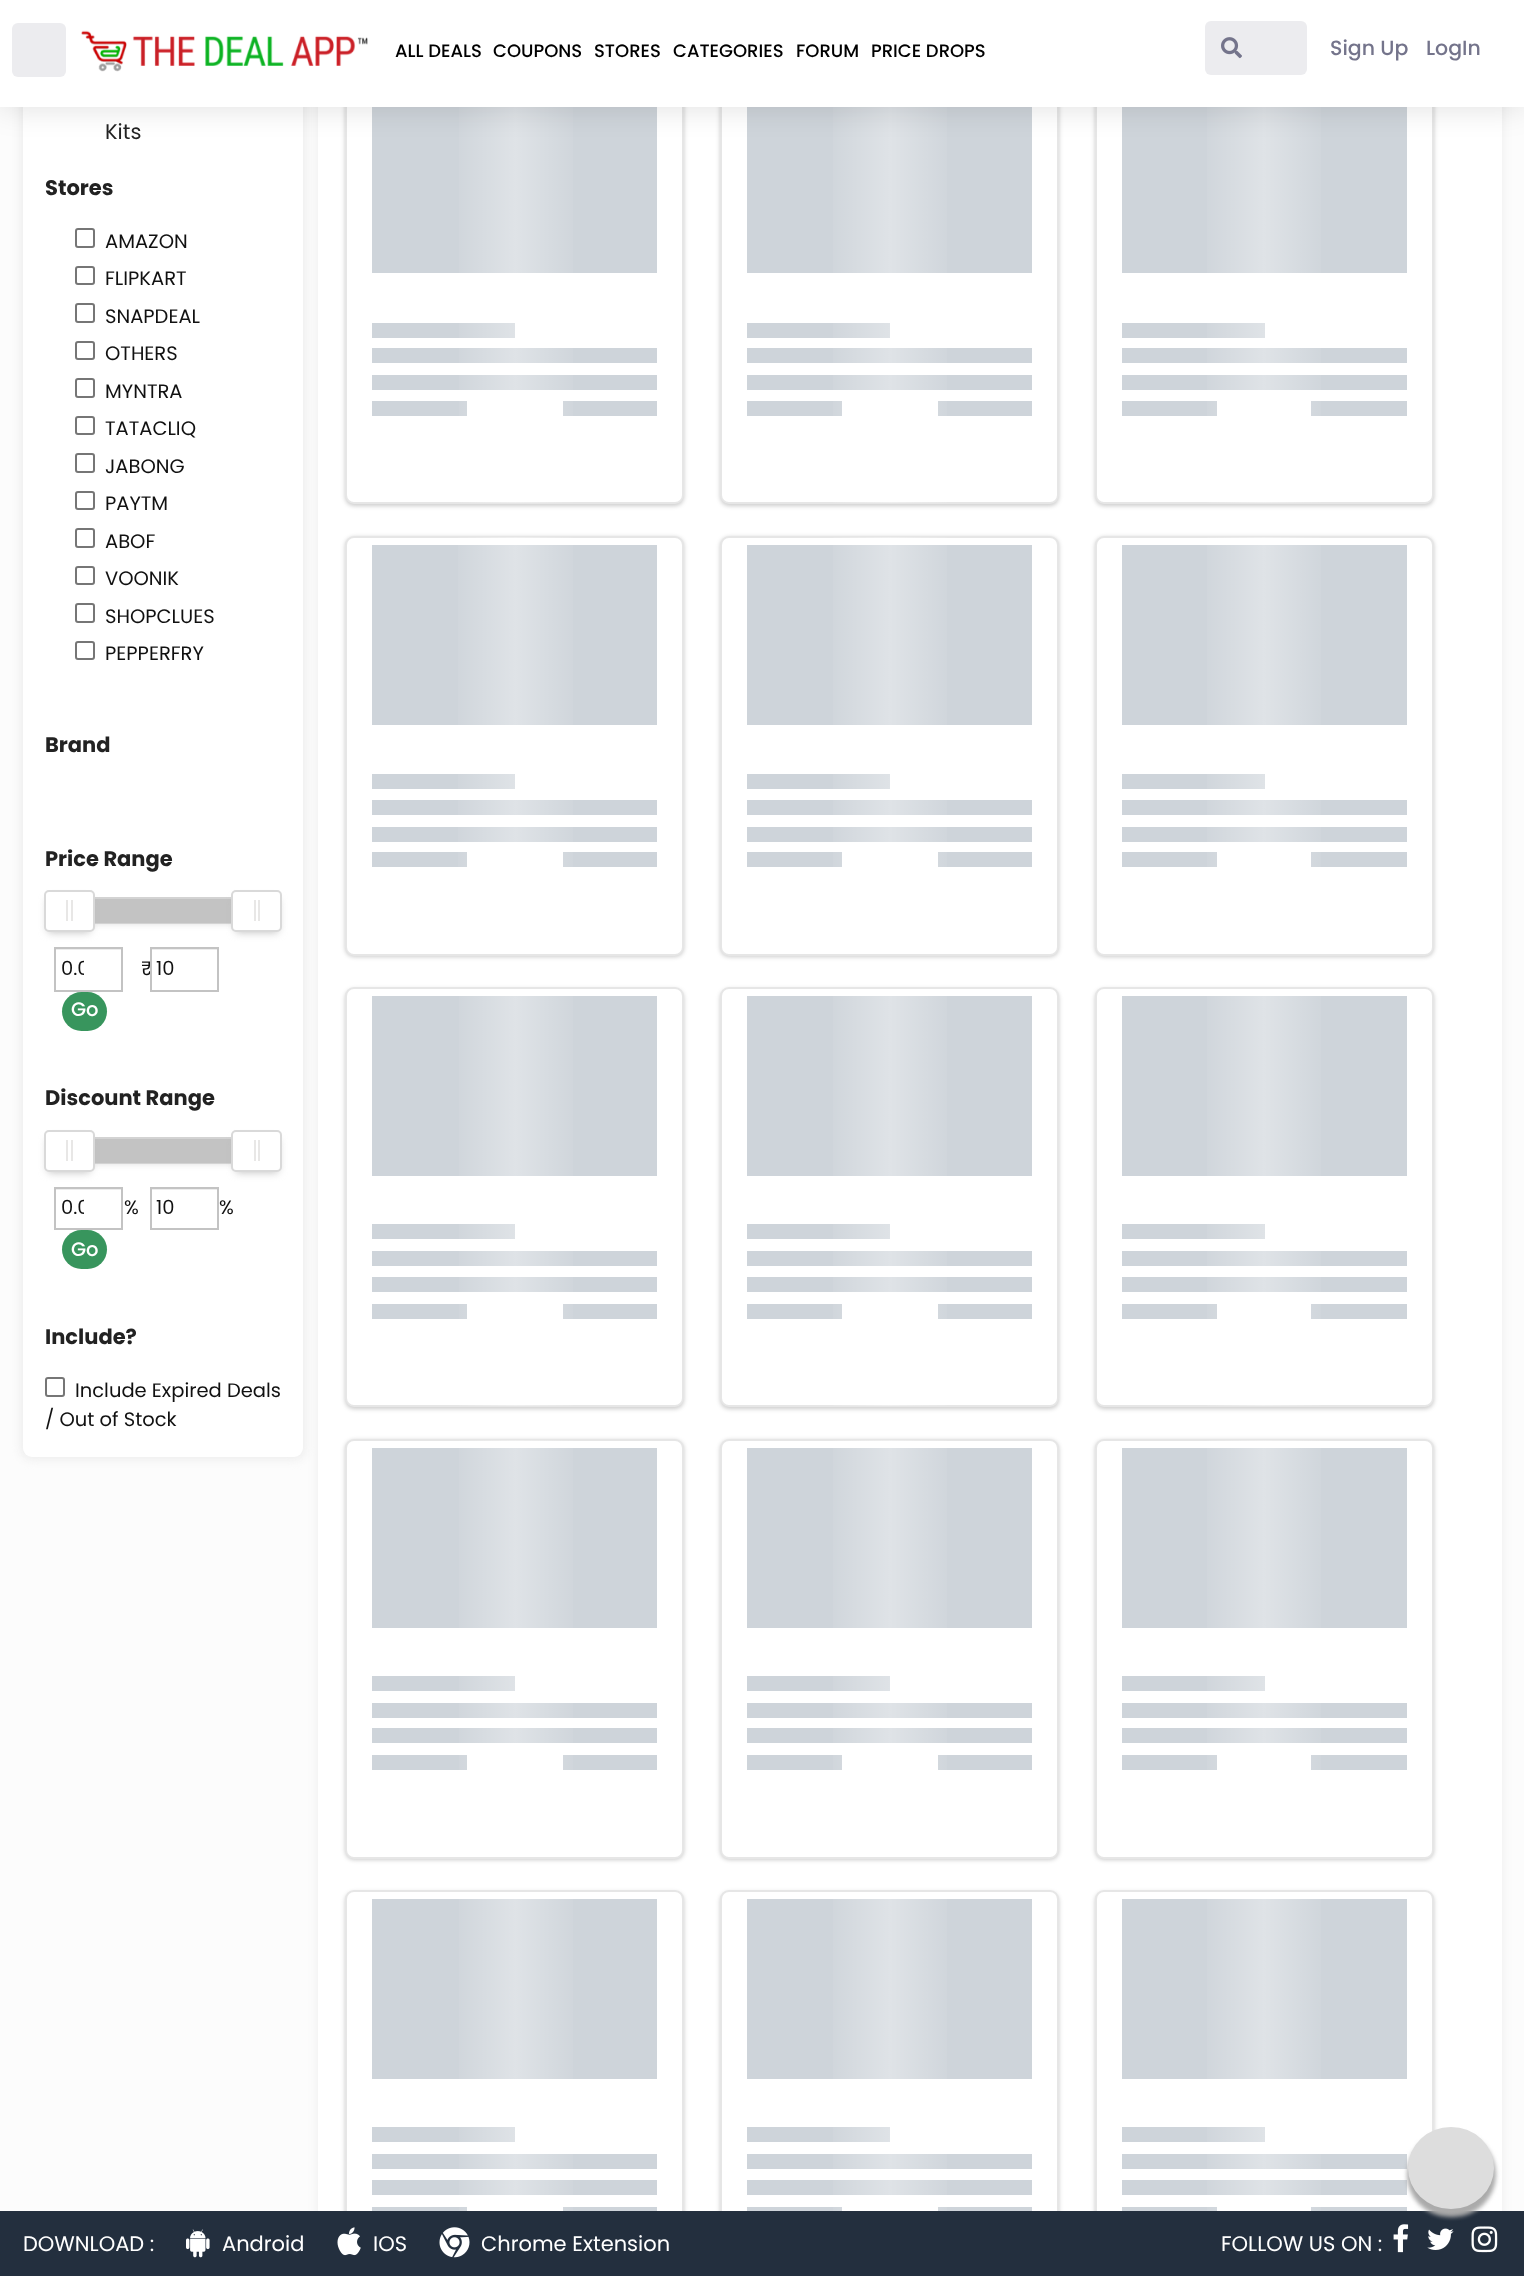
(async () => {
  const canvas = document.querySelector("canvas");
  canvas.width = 1524;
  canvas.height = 2276;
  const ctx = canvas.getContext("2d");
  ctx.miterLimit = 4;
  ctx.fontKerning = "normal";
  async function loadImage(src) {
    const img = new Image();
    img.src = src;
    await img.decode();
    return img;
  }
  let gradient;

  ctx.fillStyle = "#fcfcfc";
  ctx.fillRect(0, 0, 1524, 2276);
  ctx.fillStyle = "#eeeeee";
  ctx.filter = "blur(4px)";
  ctx.beginPath();
  ctx.roundRect(20, -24, 286, 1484, 12);
  ctx.fill();
  ctx.filter = "none";
  ctx.fillStyle = "#ffffff";
  ctx.beginPath();
  ctx.roundRect(23, -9, 280, 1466, 9);
  ctx.fill();
  ctx.fillStyle = "rgba(0, 0, 0, 0.06)";
  ctx.filter = "blur(6px)";
  ctx.beginPath();
  ctx.roundRect(318, -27, 1184, 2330, 9);
  ctx.fill();
  ctx.filter = "none";
  ctx.fillStyle = "#ffffff";
  ctx.fillRect(318, 107, 1184, 2104);
  ctx.fillStyle = "rgba(0, 0, 0, 0.2)";
  ctx.filter = "blur(2px)";
  ctx.beginPath();
  ctx.roundRect(345, 86, 339, 420, 9);
  ctx.fill();
  ctx.filter = "none";
  ctx.fillStyle = "#ffffff";
  ctx.beginPath();
  ctx.roundRect(346, 85, 337, 418, 8);
  ctx.fill();
  ctx.strokeStyle = "#e6e6e6";
  ctx.lineWidth = 2;
  ctx.stroke();
  for (const [x, y, w, h, color] of [
    [372, 107, 285, 166, "#ced4da"],
    [372, 323, 143, 15, "#ced4da"],
    [372, 348, 285, 15, "#ced4da"],
    [372, 375, 285, 15, "#ced4da"],
    [372, 401, 95, 15, "#ced4da"],
    [563, 401, 94, 15, "#ced4da"],
  ]) {
    ctx.fillStyle = color;
    ctx.fillRect(x, y, w, h);
  }
  gradient = ctx.createLinearGradient(-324, 294, 1355, 294);
  gradient.addColorStop(0.46, "rgba(255, 255, 255, 0)");
  gradient.addColorStop(0.5, "rgba(255, 255, 255, 0.35)");
  gradient.addColorStop(0.54, "rgba(255, 255, 255, 0)");
  ctx.fillStyle = gradient;
  ctx.fillRect(459, 107, 114, 396);
  ctx.fillStyle = "rgba(0, 0, 0, 0.2)";
  ctx.filter = "blur(2px)";
  ctx.beginPath();
  ctx.roundRect(720, 86, 339, 420, 9);
  ctx.fill();
  ctx.filter = "none";
  ctx.fillStyle = "#ffffff";
  ctx.beginPath();
  ctx.roundRect(721, 85, 337, 418, 8);
  ctx.fill();
  ctx.stroke();
  for (const [x, y, w, h, color] of [
    [747, 107, 285, 166, "#ced4da"],
    [747, 323, 143, 15, "#ced4da"],
    [747, 348, 285, 15, "#ced4da"],
    [747, 375, 285, 15, "#ced4da"],
    [747, 401, 95, 15, "#ced4da"],
    [938, 401, 94, 15, "#ced4da"],
  ]) {
    ctx.fillStyle = color;
    ctx.fillRect(x, y, w, h);
  }
  gradient = ctx.createLinearGradient(50, 294, 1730, 294);
  gradient.addColorStop(0.46, "rgba(255, 255, 255, 0)");
  gradient.addColorStop(0.5, "rgba(255, 255, 255, 0.35)");
  gradient.addColorStop(0.54, "rgba(255, 255, 255, 0)");
  ctx.fillStyle = gradient;
  ctx.fillRect(833, 107, 114, 396);
  ctx.fillStyle = "rgba(0, 0, 0, 0.2)";
  ctx.filter = "blur(2px)";
  ctx.beginPath();
  ctx.roundRect(1095, 86, 339, 420, 9);
  ctx.fill();
  ctx.filter = "none";
  ctx.fillStyle = "#ffffff";
  ctx.beginPath();
  ctx.roundRect(1096, 85, 337, 418, 8);
  ctx.fill();
  ctx.stroke();
  for (const [x, y, w, h, color] of [
    [1122, 107, 285, 166, "#ced4da"],
    [1122, 323, 143, 15, "#ced4da"],
    [1122, 348, 285, 15, "#ced4da"],
    [1122, 375, 285, 15, "#ced4da"],
    [1122, 401, 95, 15, "#ced4da"],
    [1311, 401, 96, 15, "#ced4da"],
  ]) {
    ctx.fillStyle = color;
    ctx.fillRect(x, y, w, h);
  }
  gradient = ctx.createLinearGradient(425, 294, 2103, 294);
  gradient.addColorStop(0.46, "rgba(255, 255, 255, 0)");
  gradient.addColorStop(0.5, "rgba(255, 255, 255, 0.35)");
  gradient.addColorStop(0.54, "rgba(255, 255, 255, 0)");
  ctx.fillStyle = gradient;
  ctx.fillRect(1207, 107, 114, 396);
  ctx.fillStyle = "rgba(0, 0, 0, 0.12)";
  ctx.filter = "blur(15px)";
  ctx.beginPath();
  ctx.rect(0, 2, 1524, 106);
  ctx.fill();
  ctx.filter = "none";
  ctx.fillStyle = "#ffffff";
  ctx.fillRect(0, 0, 1524, 107);
  ctx.fillStyle = "#ececef";
  ctx.beginPath();
  ctx.roundRect(12, 23, 54, 54, 6);
  ctx.fill();
  ctx.drawImage(await loadImage("img/1.png"), 81, 30, 287, 42);
  ctx.fillStyle = "rgba(0, 0, 0, 0.2)";
  ctx.filter = "blur(2px)";
  ctx.beginPath();
  ctx.roundRect(1095, 1892, 339, 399, 9);
  ctx.fill();
  ctx.filter = "none";
  ctx.fillStyle = "#ffffff";
  ctx.beginPath();
  ctx.roundRect(1096, 1891, 337, 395, 8);
  ctx.fill();
  ctx.stroke();
  for (const [x, y, w, h, color] of [
    [1122, 2154, 285, 15, "#ced4da"],
    [1122, 2180, 285, 15, "#ced4da"],
    [1311, 2207, 96, 4, "#ced4da"],
  ]) {
    ctx.fillStyle = color;
    ctx.fillRect(x, y, w, h);
  }
  ctx.fillStyle = "rgba(0, 0, 0, 0.2)";
  ctx.filter = "blur(2px)";
  ctx.beginPath();
  ctx.roundRect(345, 1892, 339, 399, 9);
  ctx.fill();
  ctx.filter = "none";
  ctx.fillStyle = "#ffffff";
  ctx.beginPath();
  ctx.roundRect(346, 1891, 337, 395, 8);
  ctx.fill();
  ctx.stroke();
  ctx.fillStyle = "rgba(0, 0, 0, 0.2)";
  ctx.filter = "blur(2px)";
  ctx.beginPath();
  ctx.roundRect(720, 1892, 339, 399, 9);
  ctx.fill();
  ctx.filter = "none";
  ctx.fillStyle = "#ffffff";
  ctx.beginPath();
  ctx.roundRect(721, 1891, 337, 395, 8);
  ctx.fill();
  ctx.stroke();
  ctx.fillStyle = "#232f3e";
  ctx.fillRect(0, 2211, 1524, 65);
  ctx.fillStyle = "#aaaaaa";
  ctx.filter = "blur(2px)";
  ctx.beginPath();
  ctx.roundRect(1407, 2132, 89, 85, 42.5);
  ctx.fill();
  ctx.filter = "none";
  ctx.fillStyle = "#dddddd";
  ctx.beginPath();
  ctx.ellipse(1451, 2168, 43, 41, 0, 0, Math.PI * 2);
  ctx.fill();
  ctx.fillStyle = "#ececef";
  ctx.beginPath();
  ctx.roundRect(1205, 21, 102, 54, 6);
  ctx.fill();
  ctx.drawImage(await loadImage("img/2.png"), 1221, 37, 21, 22);
  ctx.beginPath();
  ctx.roundRect(76, 229, 18, 18, 2);
  ctx.strokeStyle = "#767676";
  ctx.stroke();
  ctx.beginPath();
  ctx.roundRect(76, 267, 18, 17, 2);
  ctx.stroke();
  ctx.beginPath();
  ctx.roundRect(76, 304, 18, 18, 2);
  ctx.stroke();
  ctx.beginPath();
  ctx.roundRect(76, 342, 18, 17, 2);
  ctx.stroke();
  ctx.beginPath();
  ctx.roundRect(76, 379, 18, 18, 2);
  ctx.stroke();
  ctx.beginPath();
  ctx.roundRect(76, 417, 18, 17, 2);
  ctx.stroke();
  ctx.beginPath();
  ctx.roundRect(76, 454, 18, 18, 2);
  ctx.stroke();
  ctx.beginPath();
  ctx.roundRect(76, 492, 18, 17, 2);
  ctx.stroke();
  ctx.beginPath();
  ctx.roundRect(76, 529, 18, 18, 2);
  ctx.stroke();
  ctx.beginPath();
  ctx.roundRect(76, 567, 18, 17, 2);
  ctx.stroke();
  ctx.beginPath();
  ctx.roundRect(76, 604, 18, 18, 2);
  ctx.stroke();
  ctx.beginPath();
  ctx.roundRect(76, 642, 18, 17, 2);
  ctx.stroke();
  ctx.fillStyle = "#bbbbbb";
  ctx.filter = "blur(4.5px)";
  ctx.beginPath();
  ctx.rect(75, 909, 176, 12);
  ctx.fill();
  ctx.filter = "none";
  ctx.strokeStyle = "#d3d3d3";
  ctx.strokeRect(69, 898, 188, 25);
  ctx.fillStyle = "#c3c3c3";
  ctx.fillRect(95, 899, 136, 24);
  ctx.fillStyle = "#bbbbbb";
  ctx.filter = "blur(4.5px)";
  ctx.beginPath();
  ctx.rect(48, 899, 42, 33);
  ctx.fill();
  ctx.filter = "none";
  ctx.fillStyle = "#ffffff";
  ctx.beginPath();
  ctx.roundRect(45, 891, 49, 40, 4);
  ctx.fill();
  ctx.strokeStyle = "#d9d9d9";
  ctx.stroke();
  ctx.fillStyle = "#e8e7e6";
  ctx.fillRect(66, 900, 2, 21);
  ctx.fillRect(71, 900, 2, 21);
  ctx.fillStyle = "#bbbbbb";
  ctx.filter = "blur(4.5px)";
  ctx.beginPath();
  ctx.rect(236, 899, 42, 33);
  ctx.fill();
  ctx.filter = "none";
  ctx.fillStyle = "#ffffff";
  ctx.beginPath();
  ctx.roundRect(232, 891, 49, 40, 4);
  ctx.fill();
  ctx.stroke();
  for (const [x, y, w, h, color] of [
    [254, 900, 2, 21, "#e8e7e6"],
    [258, 900, 2, 21, "#e8e7e6"],
    [56, 949, 66, 1, "#ededed"],
  ]) {
    ctx.fillStyle = color;
    ctx.fillRect(x, y, w, h);
  }
  ctx.strokeStyle = "#c3c3c3";
  ctx.strokeRect(55, 948, 67, 43);
  ctx.fillRect(152, 949, 66, 1);
  ctx.fillStyle = "#38955d";
  ctx.beginPath();
  ctx.roundRect(62, 992, 45, 39, 19.5);
  ctx.fill();
  ctx.fillStyle = "#bbbbbb";
  ctx.filter = "blur(4.5px)";
  ctx.beginPath();
  ctx.rect(75, 1149, 176, 12);
  ctx.fill();
  ctx.filter = "none";
  ctx.strokeStyle = "#d3d3d3";
  ctx.strokeRect(69, 1138, 188, 25);
  ctx.fillStyle = "#c3c3c3";
  ctx.fillRect(95, 1139, 136, 24);
  ctx.fillStyle = "#bbbbbb";
  ctx.filter = "blur(4.5px)";
  ctx.beginPath();
  ctx.rect(48, 1139, 42, 33);
  ctx.fill();
  ctx.filter = "none";
  ctx.fillStyle = "#ffffff";
  ctx.beginPath();
  ctx.roundRect(45, 1131, 49, 40, 4);
  ctx.fill();
  ctx.strokeStyle = "#d9d9d9";
  ctx.stroke();
  ctx.fillStyle = "#e8e7e6";
  ctx.fillRect(66, 1140, 2, 21);
  ctx.fillRect(71, 1140, 2, 21);
  ctx.fillStyle = "#bbbbbb";
  ctx.filter = "blur(4.5px)";
  ctx.beginPath();
  ctx.rect(236, 1139, 42, 33);
  ctx.fill();
  ctx.filter = "none";
  ctx.fillStyle = "#ffffff";
  ctx.beginPath();
  ctx.roundRect(232, 1131, 49, 40, 4);
  ctx.fill();
  ctx.stroke();
  for (const [x, y, w, h, color] of [
    [254, 1140, 2, 21, "#e8e7e6"],
    [258, 1140, 2, 21, "#e8e7e6"],
    [56, 1189, 66, 1, "#ededed"],
  ]) {
    ctx.fillStyle = color;
    ctx.fillRect(x, y, w, h);
  }
  ctx.strokeStyle = "#c3c3c3";
  ctx.strokeRect(55, 1188, 67, 41);
  ctx.fillRect(152, 1189, 66, 1);
  ctx.strokeRect(151, 1188, 67, 41);
  ctx.fillStyle = "#38955d";
  ctx.beginPath();
  ctx.roundRect(62, 1230, 45, 39, 19.5);
  ctx.fill();
  ctx.beginPath();
  ctx.roundRect(46, 1378, 18, 18, 2);
  ctx.strokeStyle = "#767676";
  ctx.stroke();
  ctx.fillStyle = "rgba(0, 0, 0, 0.2)";
  ctx.filter = "blur(2px)";
  ctx.beginPath();
  ctx.roundRect(345, 537, 339, 420, 9);
  ctx.fill();
  ctx.filter = "none";
  ctx.fillStyle = "#ffffff";
  ctx.beginPath();
  ctx.roundRect(346, 537, 337, 418, 8);
  ctx.fill();
  ctx.strokeStyle = "#e6e6e6";
  ctx.stroke();
  for (const [x, y, w, h, color] of [
    [372, 545, 285, 180, "#ced4da"],
    [372, 774, 143, 15, "#ced4da"],
    [372, 800, 285, 15, "#ced4da"],
    [372, 827, 285, 15, "#ced4da"],
    [372, 852, 95, 15, "#ced4da"],
    [563, 852, 94, 15, "#ced4da"],
  ]) {
    ctx.fillStyle = color;
    ctx.fillRect(x, y, w, h);
  }
  gradient = ctx.createLinearGradient(-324, 746, 1355, 745);
  gradient.addColorStop(0.46, "rgba(255, 255, 255, 0)");
  gradient.addColorStop(0.5, "rgba(255, 255, 255, 0.35)");
  gradient.addColorStop(0.54, "rgba(255, 255, 255, 0)");
  ctx.fillStyle = gradient;
  ctx.fillRect(458, 537, 115, 330);
  ctx.fillStyle = "rgba(0, 0, 0, 0.2)";
  ctx.filter = "blur(2px)";
  ctx.beginPath();
  ctx.roundRect(720, 537, 339, 420, 9);
  ctx.fill();
  ctx.filter = "none";
  ctx.fillStyle = "#ffffff";
  ctx.beginPath();
  ctx.roundRect(721, 537, 337, 418, 8);
  ctx.fill();
  ctx.stroke();
  for (const [x, y, w, h, color] of [
    [747, 545, 285, 180, "#ced4da"],
    [747, 774, 143, 15, "#ced4da"],
    [747, 800, 285, 15, "#ced4da"],
    [747, 827, 285, 15, "#ced4da"],
    [747, 852, 95, 15, "#ced4da"],
    [938, 852, 94, 15, "#ced4da"],
  ]) {
    ctx.fillStyle = color;
    ctx.fillRect(x, y, w, h);
  }
  gradient = ctx.createLinearGradient(50, 746, 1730, 745);
  gradient.addColorStop(0.46, "rgba(255, 255, 255, 0)");
  gradient.addColorStop(0.5, "rgba(255, 255, 255, 0.35)");
  gradient.addColorStop(0.54, "rgba(255, 255, 255, 0)");
  ctx.fillStyle = gradient;
  ctx.fillRect(833, 537, 114, 330);
  ctx.fillStyle = "rgba(0, 0, 0, 0.2)";
  ctx.filter = "blur(2px)";
  ctx.beginPath();
  ctx.roundRect(1095, 537, 339, 420, 9);
  ctx.fill();
  ctx.filter = "none";
  ctx.fillStyle = "#ffffff";
  ctx.beginPath();
  ctx.roundRect(1096, 537, 337, 418, 8);
  ctx.fill();
  ctx.stroke();
  for (const [x, y, w, h, color] of [
    [1122, 545, 285, 180, "#ced4da"],
    [1122, 774, 143, 15, "#ced4da"],
    [1122, 800, 285, 15, "#ced4da"],
    [1122, 827, 285, 15, "#ced4da"],
    [1122, 852, 95, 15, "#ced4da"],
    [1311, 852, 96, 15, "#ced4da"],
  ]) {
    ctx.fillStyle = color;
    ctx.fillRect(x, y, w, h);
  }
  gradient = ctx.createLinearGradient(425, 746, 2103, 745);
  gradient.addColorStop(0.46, "rgba(255, 255, 255, 0)");
  gradient.addColorStop(0.5, "rgba(255, 255, 255, 0.35)");
  gradient.addColorStop(0.54, "rgba(255, 255, 255, 0)");
  ctx.fillStyle = gradient;
  ctx.fillRect(1207, 537, 114, 330);
  ctx.fillStyle = "rgba(0, 0, 0, 0.2)";
  ctx.filter = "blur(2px)";
  ctx.beginPath();
  ctx.roundRect(345, 989, 339, 420, 9);
  ctx.fill();
  ctx.filter = "none";
  ctx.fillStyle = "#ffffff";
  ctx.beginPath();
  ctx.roundRect(346, 988, 337, 418, 8);
  ctx.fill();
  ctx.stroke();
  for (const [x, y, w, h, color] of [
    [372, 996, 285, 180, "#ced4da"],
    [372, 1224, 143, 15, "#ced4da"],
    [372, 1251, 285, 15, "#ced4da"],
    [372, 1277, 285, 15, "#ced4da"],
    [372, 1304, 95, 15, "#ced4da"],
    [563, 1304, 94, 15, "#ced4da"],
  ]) {
    ctx.fillStyle = color;
    ctx.fillRect(x, y, w, h);
  }
  gradient = ctx.createLinearGradient(-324, 1197, 1355, 1197);
  gradient.addColorStop(0.46, "rgba(255, 255, 255, 0)");
  gradient.addColorStop(0.5, "rgba(255, 255, 255, 0.35)");
  gradient.addColorStop(0.54, "rgba(255, 255, 255, 0)");
  ctx.fillStyle = gradient;
  ctx.fillRect(459, 996, 114, 410);
  ctx.fillStyle = "rgba(0, 0, 0, 0.2)";
  ctx.filter = "blur(2px)";
  ctx.beginPath();
  ctx.roundRect(720, 989, 339, 420, 9);
  ctx.fill();
  ctx.filter = "none";
  ctx.fillStyle = "#ffffff";
  ctx.beginPath();
  ctx.roundRect(721, 988, 337, 418, 8);
  ctx.fill();
  ctx.stroke();
  for (const [x, y, w, h, color] of [
    [747, 996, 285, 180, "#ced4da"],
    [747, 1224, 143, 15, "#ced4da"],
    [747, 1251, 285, 15, "#ced4da"],
    [747, 1277, 285, 15, "#ced4da"],
    [747, 1304, 95, 15, "#ced4da"],
    [938, 1304, 94, 15, "#ced4da"],
  ]) {
    ctx.fillStyle = color;
    ctx.fillRect(x, y, w, h);
  }
  gradient = ctx.createLinearGradient(50, 1197, 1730, 1197);
  gradient.addColorStop(0.46, "rgba(255, 255, 255, 0)");
  gradient.addColorStop(0.5, "rgba(255, 255, 255, 0.35)");
  gradient.addColorStop(0.54, "rgba(255, 255, 255, 0)");
  ctx.fillStyle = gradient;
  ctx.fillRect(833, 996, 114, 410);
  ctx.fillStyle = "rgba(0, 0, 0, 0.2)";
  ctx.filter = "blur(2px)";
  ctx.beginPath();
  ctx.roundRect(1095, 989, 339, 420, 9);
  ctx.fill();
  ctx.filter = "none";
  ctx.fillStyle = "#ffffff";
  ctx.beginPath();
  ctx.roundRect(1096, 988, 337, 418, 8);
  ctx.fill();
  ctx.stroke();
  for (const [x, y, w, h, color] of [
    [1122, 996, 285, 180, "#ced4da"],
    [1122, 1224, 143, 15, "#ced4da"],
    [1122, 1251, 285, 15, "#ced4da"],
    [1122, 1277, 285, 15, "#ced4da"],
    [1122, 1304, 95, 15, "#ced4da"],
    [1311, 1304, 96, 15, "#ced4da"],
  ]) {
    ctx.fillStyle = color;
    ctx.fillRect(x, y, w, h);
  }
  gradient = ctx.createLinearGradient(425, 1197, 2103, 1197);
  gradient.addColorStop(0.46, "rgba(255, 255, 255, 0)");
  gradient.addColorStop(0.5, "rgba(255, 255, 255, 0.35)");
  gradient.addColorStop(0.54, "rgba(255, 255, 255, 0)");
  ctx.fillStyle = gradient;
  ctx.fillRect(1207, 996, 114, 410);
  ctx.fillStyle = "rgba(0, 0, 0, 0.2)";
  ctx.filter = "blur(2px)";
  ctx.beginPath();
  ctx.roundRect(345, 1440, 339, 420, 9);
  ctx.fill();
  ctx.filter = "none";
  ctx.fillStyle = "#ffffff";
  ctx.beginPath();
  ctx.roundRect(346, 1440, 337, 418, 8);
  ctx.fill();
  ctx.stroke();
  for (const [x, y, w, h, color] of [
    [372, 1448, 285, 180, "#ced4da"],
    [372, 1676, 143, 15, "#ced4da"],
    [372, 1703, 285, 15, "#ced4da"],
    [372, 1728, 285, 15, "#ced4da"],
    [372, 1755, 95, 15, "#ced4da"],
    [563, 1755, 94, 15, "#ced4da"],
  ]) {
    ctx.fillStyle = color;
    ctx.fillRect(x, y, w, h);
  }
  gradient = ctx.createLinearGradient(-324, 1649, 1355, 1649);
  gradient.addColorStop(0.46, "rgba(255, 255, 255, 0)");
  gradient.addColorStop(0.5, "rgba(255, 255, 255, 0.35)");
  gradient.addColorStop(0.54, "rgba(255, 255, 255, 0)");
  ctx.fillStyle = gradient;
  ctx.fillRect(459, 1440, 114, 330);
  ctx.fillStyle = "rgba(0, 0, 0, 0.2)";
  ctx.filter = "blur(2px)";
  ctx.beginPath();
  ctx.roundRect(720, 1440, 339, 420, 9);
  ctx.fill();
  ctx.filter = "none";
  ctx.fillStyle = "#ffffff";
  ctx.beginPath();
  ctx.roundRect(721, 1440, 337, 418, 8);
  ctx.fill();
  ctx.stroke();
  for (const [x, y, w, h, color] of [
    [747, 1448, 285, 180, "#ced4da"],
    [747, 1676, 143, 15, "#ced4da"],
    [747, 1703, 285, 15, "#ced4da"],
    [747, 1728, 285, 15, "#ced4da"],
    [747, 1755, 95, 15, "#ced4da"],
    [938, 1755, 94, 15, "#ced4da"],
  ]) {
    ctx.fillStyle = color;
    ctx.fillRect(x, y, w, h);
  }
  gradient = ctx.createLinearGradient(50, 1649, 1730, 1649);
  gradient.addColorStop(0.46, "rgba(255, 255, 255, 0)");
  gradient.addColorStop(0.5, "rgba(255, 255, 255, 0.35)");
  gradient.addColorStop(0.54, "rgba(255, 255, 255, 0)");
  ctx.fillStyle = gradient;
  ctx.fillRect(833, 1440, 114, 330);
  ctx.fillStyle = "rgba(0, 0, 0, 0.2)";
  ctx.filter = "blur(2px)";
  ctx.beginPath();
  ctx.roundRect(1095, 1440, 339, 420, 9);
  ctx.fill();
  ctx.filter = "none";
  ctx.fillStyle = "#ffffff";
  ctx.beginPath();
  ctx.roundRect(1096, 1440, 337, 418, 8);
  ctx.fill();
  ctx.stroke();
  for (const [x, y, w, h, color] of [
    [1122, 1448, 285, 180, "#ced4da"],
    [1122, 1676, 143, 15, "#ced4da"],
    [1122, 1703, 285, 15, "#ced4da"],
    [1122, 1728, 285, 15, "#ced4da"],
    [1122, 1755, 95, 15, "#ced4da"],
    [1311, 1755, 96, 15, "#ced4da"],
  ]) {
    ctx.fillStyle = color;
    ctx.fillRect(x, y, w, h);
  }
  gradient = ctx.createLinearGradient(425, 1649, 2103, 1649);
  gradient.addColorStop(0.46, "rgba(255, 255, 255, 0)");
  gradient.addColorStop(0.5, "rgba(255, 255, 255, 0.35)");
  gradient.addColorStop(0.54, "rgba(255, 255, 255, 0)");
  ctx.fillStyle = gradient;
  ctx.fillRect(1207, 1440, 114, 330);
  for (const [x, y, w, h, color] of [
    [372, 1899, 285, 180, "#ced4da"],
    [372, 2127, 143, 15, "#ced4da"],
    [372, 2154, 285, 15, "#ced4da"],
    [372, 2180, 285, 15, "#ced4da"],
    [372, 2207, 95, 4, "#ced4da"],
    [563, 2207, 94, 4, "#ced4da"],
  ]) {
    ctx.fillStyle = color;
    ctx.fillRect(x, y, w, h);
  }
  gradient = ctx.createLinearGradient(-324, 2100, 1355, 2100);
  gradient.addColorStop(0.46, "rgba(255, 255, 255, 0)");
  gradient.addColorStop(0.5, "rgba(255, 255, 255, 0.35)");
  gradient.addColorStop(0.54, "rgba(255, 255, 255, 0)");
  ctx.fillStyle = gradient;
  ctx.fillRect(459, 1899, 114, 312);
  for (const [x, y, w, h, color] of [
    [747, 1899, 285, 180, "#ced4da"],
    [747, 2127, 143, 15, "#ced4da"],
    [747, 2154, 285, 15, "#ced4da"],
    [747, 2180, 285, 15, "#ced4da"],
    [747, 2207, 95, 4, "#ced4da"],
    [938, 2207, 94, 4, "#ced4da"],
  ]) {
    ctx.fillStyle = color;
    ctx.fillRect(x, y, w, h);
  }
  gradient = ctx.createLinearGradient(50, 2100, 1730, 2100);
  gradient.addColorStop(0.46, "rgba(255, 255, 255, 0)");
  gradient.addColorStop(0.5, "rgba(255, 255, 255, 0.35)");
  gradient.addColorStop(0.54, "rgba(255, 255, 255, 0)");
  ctx.fillStyle = gradient;
  ctx.fillRect(833, 1899, 114, 312);
  for (const [x, y, w, h, color] of [
    [1122, 1899, 285, 180, "#ced4da"],
    [1122, 2127, 143, 15, "#ced4da"],
    [1122, 2207, 95, 4, "#ced4da"],
  ]) {
    ctx.fillStyle = color;
    ctx.fillRect(x, y, w, h);
  }
  gradient = ctx.createLinearGradient(425, 2100, 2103, 2100);
  gradient.addColorStop(0.46, "rgba(255, 255, 255, 0)");
  gradient.addColorStop(0.5, "rgba(255, 255, 255, 0.35)");
  gradient.addColorStop(0.54, "rgba(255, 255, 255, 0)");
  ctx.fillStyle = gradient;
  ctx.fillRect(1207, 1899, 114, 312);
  ctx.drawImage(await loadImage("img/3.png"), 186, 2229, 24, 29);
  ctx.drawImage(await loadImage("img/4.png"), 337, 2227, 24, 29);
  ctx.drawImage(await loadImage("img/5.png"), 439, 2227, 31, 31);
  ctx.drawImage(await loadImage("img/6.png"), 1393, 2224, 16, 29);
  ctx.drawImage(await loadImage("img/7.png"), 1427, 2228, 27, 22);
  ctx.drawImage(await loadImage("img/8.png"), 1471, 2226, 27, 27);
  ctx.font = "500 18px Poppins";
  ctx.fillStyle = "#000000";
  for (const [text, x, y] of [
    ["ALL DEALS", 395, 57],
    ["COUPONS", 493, 57],
    ["STORES", 594, 57],
    ["CATEGORIES", 673, 57],
    ["FORUM", 796, 57],
    ["PRICE DROPS", 871, 57],
  ]) {
    ctx.fillText(text, x, y);
  }
  ctx.font = "500 20.5px Poppins";
  ctx.fillStyle = "#74748b";
  ctx.fillText("Sign Up", 1330, 55);
  ctx.fillText("LogIn", 1426, 55);
  ctx.font = "21px Poppins";
  ctx.fillStyle = "#222222";
  ctx.fillText("Kits", 105, 139);
  ctx.font = "bold 21px Poppins";
  ctx.fillText("Stores", 45, 195);
  ctx.font = "19.5px Poppins";
  ctx.fillStyle = "#111111";
  for (const [text, x, y] of [
    ["AMAZON", 105, 248],
    ["FLIPKART", 105, 285],
    ["SNAPDEAL", 105, 323],
    ["OTHERS", 105, 360],
    ["MYNTRA", 105, 398],
    ["TATACLIQ", 105, 435],
    ["JABONG", 105, 473],
    ["PAYTM", 105, 510],
    ["ABOF", 105, 548],
    ["VOONIK", 105, 585],
    ["SHOPCLUES", 105, 623],
    ["PEPPERFRY", 105, 660],
  ]) {
    ctx.fillText(text, x, y);
  }
  ctx.font = "bold 21px Poppins";
  ctx.fillStyle = "#222222";
  ctx.fillText("Brand", 45, 752);
  ctx.fillText("Price Range", 45, 866);
  ctx.save();
  ctx.beginPath();
  ctx.rect(60, 954, 24, 30);
  ctx.clip();
  ctx.font = "19.5px Poppins";
  ctx.fillStyle = "#111111";
  ctx.fillText("0.0", 61, 975);
  ctx.restore();
  ctx.font = "19.5px Poppins";
  ctx.fillStyle = "#111111";
  ctx.fillText("₹", 141, 975);
  ctx.fillStyle = "#ffffff";
  ctx.fillRect(152, 961, 2, 6);
  ctx.strokeStyle = "#c3c3c3";
  ctx.strokeRect(151, 948, 67, 43);
  ctx.fillStyle = "#111111";
  ctx.fillText("10", 156, 975);
  ctx.font = "500 19.5px Poppins";
  ctx.fillStyle = "#ffffff";
  ctx.fillText("Go", 71, 1016);
  ctx.font = "bold 21px Poppins";
  ctx.fillStyle = "#222222";
  ctx.fillText("Discount Range", 45, 1105);
  ctx.save();
  ctx.beginPath();
  ctx.rect(60, 1194, 24, 29);
  ctx.clip();
  ctx.font = "19.5px Poppins";
  ctx.fillStyle = "#111111";
  ctx.fillText("0.0", 61, 1214);
  ctx.restore();
  ctx.font = "19.5px Poppins";
  ctx.fillStyle = "#111111";
  for (const [text, x, y] of [
    ["%", 124, 1214],
    ["10", 156, 1214],
    ["%", 219, 1214],
  ]) {
    ctx.fillText(text, x, y);
  }
  ctx.font = "500 19.5px Poppins";
  ctx.fillStyle = "#ffffff";
  ctx.fillText("Go", 71, 1256);
  ctx.font = "bold 21px Poppins";
  ctx.fillStyle = "#222222";
  ctx.fillText("Include?", 45, 1344);
  ctx.font = "19.5px Poppins";
  ctx.fillStyle = "#111111";
  ctx.fillText("Include Expired Deals", 75, 1397);
  ctx.fillText("/ Out of Stock", 45, 1426);
  ctx.font = "21px Poppins";
  ctx.fillStyle = "#ffffff";
  for (const [text, x, y] of [
    ["DOWNLOAD :", 23, 2251],
    ["Android", 222, 2251],
    ["IOS", 373, 2251],
    ["Chrome Extension", 481, 2251],
    ["FOLLOW US ON :", 1221, 2251],
  ]) {
    ctx.fillText(text, x, y);
  }
})();
